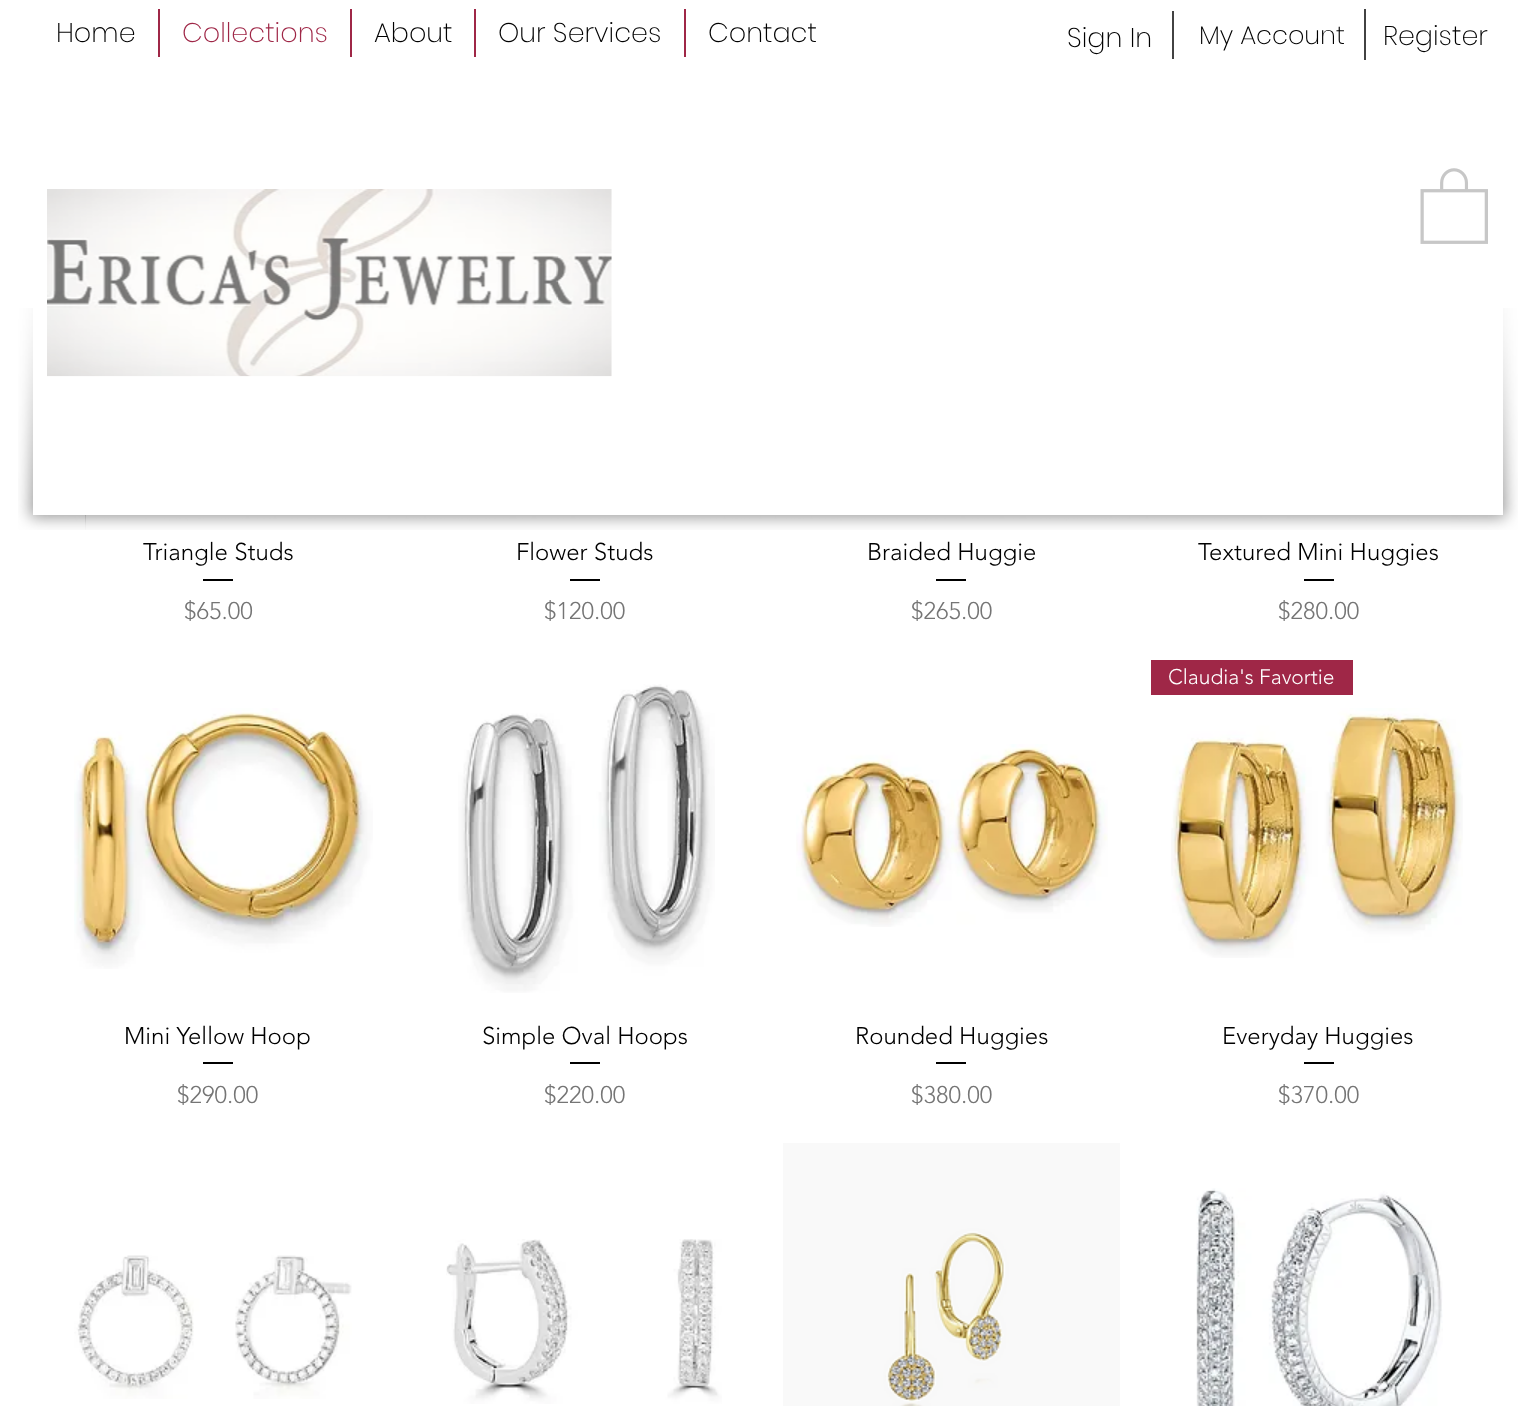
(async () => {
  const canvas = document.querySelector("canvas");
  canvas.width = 1536;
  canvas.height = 1406;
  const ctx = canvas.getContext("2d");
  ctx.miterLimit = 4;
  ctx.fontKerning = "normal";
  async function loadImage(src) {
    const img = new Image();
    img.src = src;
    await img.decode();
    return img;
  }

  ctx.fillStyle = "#ffffff";
  ctx.fillRect(0, 0, 1536, 1406);
  for (const [x, y, w, h, color] of [
    [158, 9, 2, 48, "#9f2747"],
    [350, 9, 2, 48, "#9f2747"],
    [474, 9, 2, 48, "#9f2747"],
    [684, 9, 2, 48, "#9f2747"],
    [1172, 11, 2, 48, "#424242"],
    [1364, 9, 2, 51, "#424242"],
  ]) {
    ctx.fillStyle = color;
    ctx.fillRect(x, y, w, h);
  }
  ctx.drawImage(await loadImage("img/3.png"), 18, 308, 68, 222);
  ctx.drawImage(await loadImage("img/5.png"), 1451, 308, 67, 222);
  ctx.fillStyle = "#ffffff";
  ctx.fillRect(33, 308, 1470, 207);
  ctx.drawImage(await loadImage("img/1.png"), 47, 189, 565, 188);
  ctx.drawImage(await loadImage("img/2.png"), 1420, 168, 68, 76);
  ctx.drawImage(await loadImage("img/4.png"), 85, 515, 1366, 15);
  for (const [x, y, w, h, color] of [
    [203, 579, 30, 2, "#000000"],
    [570, 579, 30, 2, "#000000"],
    [936, 579, 30, 2, "#000000"],
    [1304, 579, 30, 2, "#000000"],
  ]) {
    ctx.fillStyle = color;
    ctx.fillRect(x, y, w, h);
  }
  ctx.drawImage(await loadImage("img/6.png"), 74, 708, 299, 261);
  ctx.fillRect(203, 1062, 30, 2);
  ctx.drawImage(await loadImage("img/7.png"), 458, 684, 257, 309);
  ctx.fillRect(570, 1062, 30, 2);
  ctx.drawImage(await loadImage("img/8.png"), 796, 744, 312, 183);
  ctx.fillRect(936, 1062, 30, 2);
  ctx.fillStyle = "#9f2747";
  ctx.fillRect(1151, 660, 202, 35);
  ctx.drawImage(await loadImage("img/9.png"), 1171, 708, 292, 250);
  ctx.fillStyle = "#000000";
  ctx.fillRect(1304, 1062, 30, 2);
  ctx.drawImage(await loadImage("img/10.png"), 74, 1255, 278, 144);
  ctx.drawImage(await loadImage("img/11.png"), 446, 1239, 276, 165);
  ctx.drawImage(await loadImage("img/12.png"), 783, 1143, 337, 263);
  ctx.drawImage(await loadImage("img/13.png"), 1196, 1188, 247, 218);
  ctx.font = "200 27px Poppins";
  ctx.fillText("Home", 56, 42);
  ctx.fillStyle = "#9f2747";
  ctx.fillText("Collections", 182, 42);
  ctx.fillStyle = "#000000";
  for (const [text, x, y] of [
    ["About", 374, 42],
    ["Our Services", 498, 42],
    ["Contact", 708, 42],
    ["Sign In", 1067, 47],
  ]) {
    ctx.fillText(text, x, y);
  }
  ctx.font = "200 25.5px Poppins";
  ctx.fillText("My Account", 1199, 44);
  ctx.font = "200 27px Poppins";
  ctx.fillText("Register", 1383, 45);
  ctx.font = "300 24px 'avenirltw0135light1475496'";
  ctx.fillText("Triangle Studs", 143, 560);
  ctx.fillStyle = "#757575";
  ctx.fillText("$65.00", 184, 619);
  ctx.fillStyle = "#000000";
  ctx.fillText("Flower Studs", 516, 560);
  ctx.fillStyle = "#757575";
  ctx.fillText("$120.00", 544, 619);
  ctx.fillStyle = "#000000";
  ctx.fillText("Braided Huggie", 867, 560);
  ctx.fillStyle = "#757575";
  ctx.fillText("$265.00", 911, 619);
  ctx.fillStyle = "#000000";
  ctx.fillText("Textured Mini Huggies", 1198, 560);
  ctx.fillStyle = "#757575";
  ctx.fillText("$280.00", 1278, 619);
  ctx.fillStyle = "#000000";
  ctx.fillText("Mini Yellow Hoop", 124, 1044);
  ctx.fillStyle = "#757575";
  ctx.fillText("$290.00", 177, 1103);
  ctx.fillStyle = "#000000";
  ctx.fillText("Simple Oval Hoops", 482, 1044);
  ctx.fillStyle = "#757575";
  ctx.fillText("$220.00", 544, 1103);
  ctx.fillStyle = "#000000";
  ctx.fillText("Rounded Huggies", 855, 1044);
  ctx.fillStyle = "#757575";
  ctx.fillText("$380.00", 911, 1103);
  ctx.font = "300 21px 'avenirltw0135light1475496'";
  ctx.fillStyle = "#ffffff";
  ctx.fillText("Claudia's Favortie", 1168, 684);
  ctx.font = "300 24px 'avenirltw0135light1475496'";
  ctx.fillStyle = "#000000";
  ctx.fillText("Everyday Huggies", 1222, 1044);
  ctx.fillStyle = "#757575";
  ctx.fillText("$370.00", 1278, 1103);
})();
